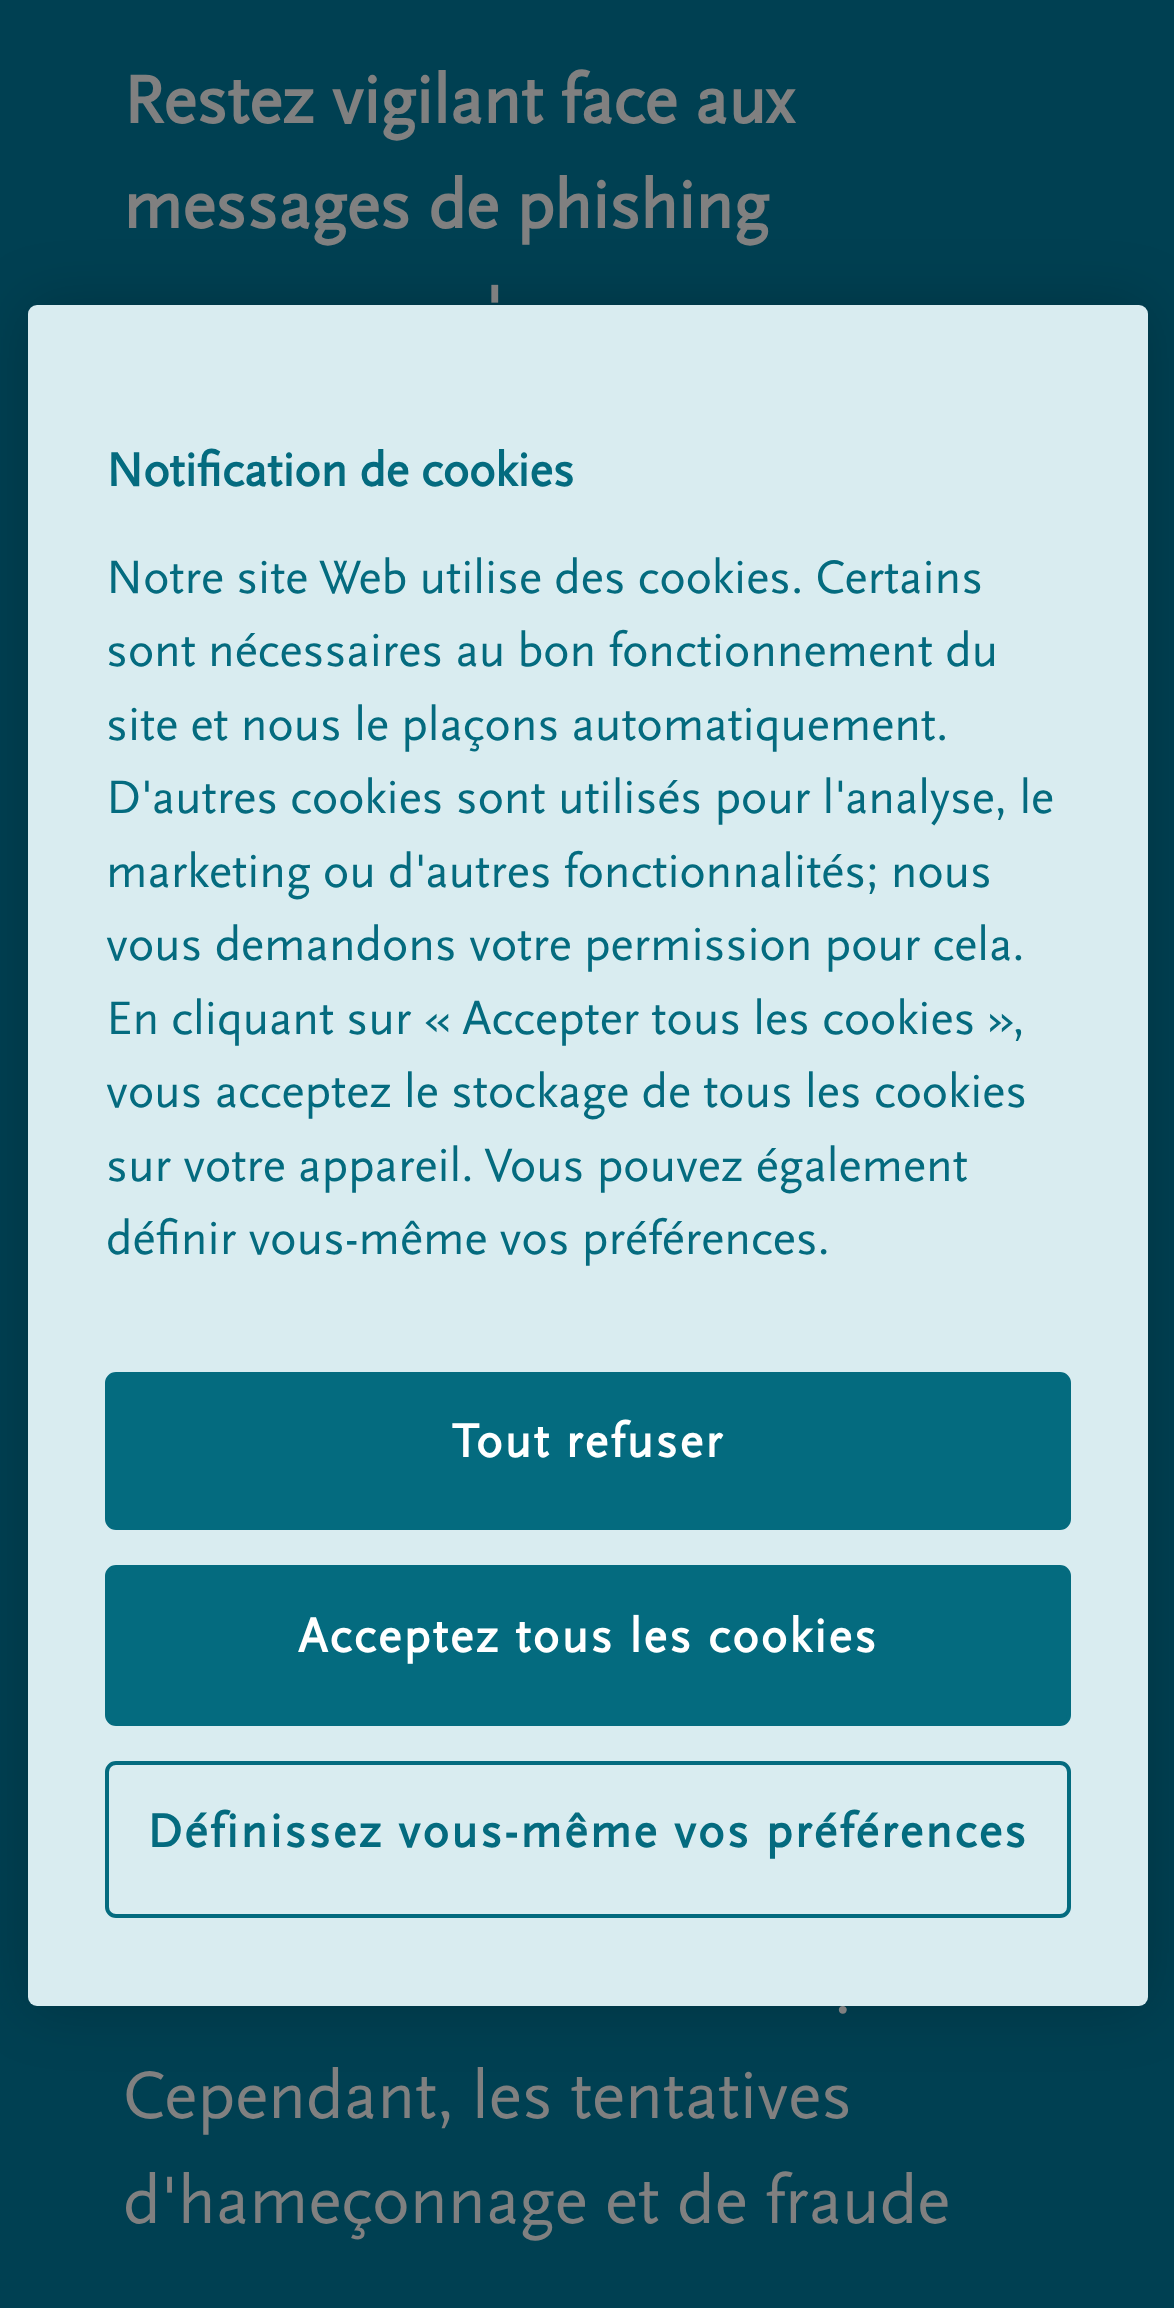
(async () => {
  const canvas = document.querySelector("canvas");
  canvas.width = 1174;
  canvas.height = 2308;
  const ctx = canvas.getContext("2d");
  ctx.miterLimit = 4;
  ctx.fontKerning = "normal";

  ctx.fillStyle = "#004052";
  ctx.fillRect(0, 0, 1174, 2308);
  ctx.fillStyle = "rgba(0, 0, 0, 0.2)";
  ctx.filter = "blur(31.5px)";
  ctx.beginPath();
  ctx.roundRect(28, 305, 1120, 1701, 9);
  ctx.fill();
  ctx.filter = "none";
  ctx.font = "bold 70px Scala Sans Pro";
  ctx.fillStyle = "#808080";
  for (const [text, x, y] of [
    ["Restez vigilant face aux", 123, 123],
    ["messages de phishing", 123, 228],
    ["'", 485, 333],
  ]) {
    ctx.fillText(text, x, y);
  }
  ctx.font = "70px Scala Sans Pro";
  for (const [text, x, y] of [
    [".", 834, 2013],
    ["Cependant, les tentatives", 123, 2118],
    ["d'hameçonnage et de fraude", 123, 2223],
  ]) {
    ctx.fillText(text, x, y);
  }
  ctx.fillStyle = "#d9ecf0";
  ctx.beginPath();
  ctx.roundRect(28, 305, 1120, 1701, 9);
  ctx.fill();
  ctx.font = "bold 49px Scala Sans Pro";
  ctx.fillStyle = "#046b7f";
  ctx.fillText("Notification de cookies", 106, 486);
  ctx.font = "49px Scala Sans Pro";
  for (const [text, x, y] of [
    ["Notre site Web utilise des cookies. Certains", 106, 593],
    ["sont nécessaires au bon fonctionnement du", 106, 666],
    ["site et nous le plaçons automatiquement.", 106, 740],
    ["D'autres cookies sont utilisés pour l'analyse, le", 106, 813],
    ["marketing ou d'autres fonctionnalités; nous", 106, 887],
    ["vous demandons votre permission pour cela.", 106, 960],
    ["En cliquant sur « Accepter tous les cookies »,", 106, 1034],
    ["vous acceptez le stockage de tous les cookies", 106, 1107],
    ["sur votre appareil. Vous pouvez également", 106, 1181],
    ["définir vous-même vos préférences.", 106, 1254],
  ]) {
    ctx.fillText(text, x, y);
  }
  ctx.beginPath();
  ctx.roundRect(107, 1374, 962, 154, 9);
  ctx.fill();
  ctx.strokeStyle = "#046b7f";
  ctx.lineWidth = 4;
  ctx.stroke();
  ctx.letterSpacing = "2.45px";
  ctx.font = "bold 49px Scala Sans Pro";
  ctx.fillStyle = "#ffffff";
  ctx.fillText("Tout refuser", 452, 1457);
  ctx.fillStyle = "#046b7f";
  ctx.beginPath();
  ctx.roundRect(107, 1567, 962, 157, 9);
  ctx.fill();
  ctx.stroke();
  ctx.fillStyle = "#ffffff";
  ctx.fillText("Acceptez tous les cookies", 298, 1652);
  ctx.beginPath();
  ctx.roundRect(107, 1763, 962, 153, 9);
  ctx.stroke();
  ctx.fillStyle = "#046b7f";
  ctx.fillText("Définissez vous-même vos préférences", 147, 1847);
})();
